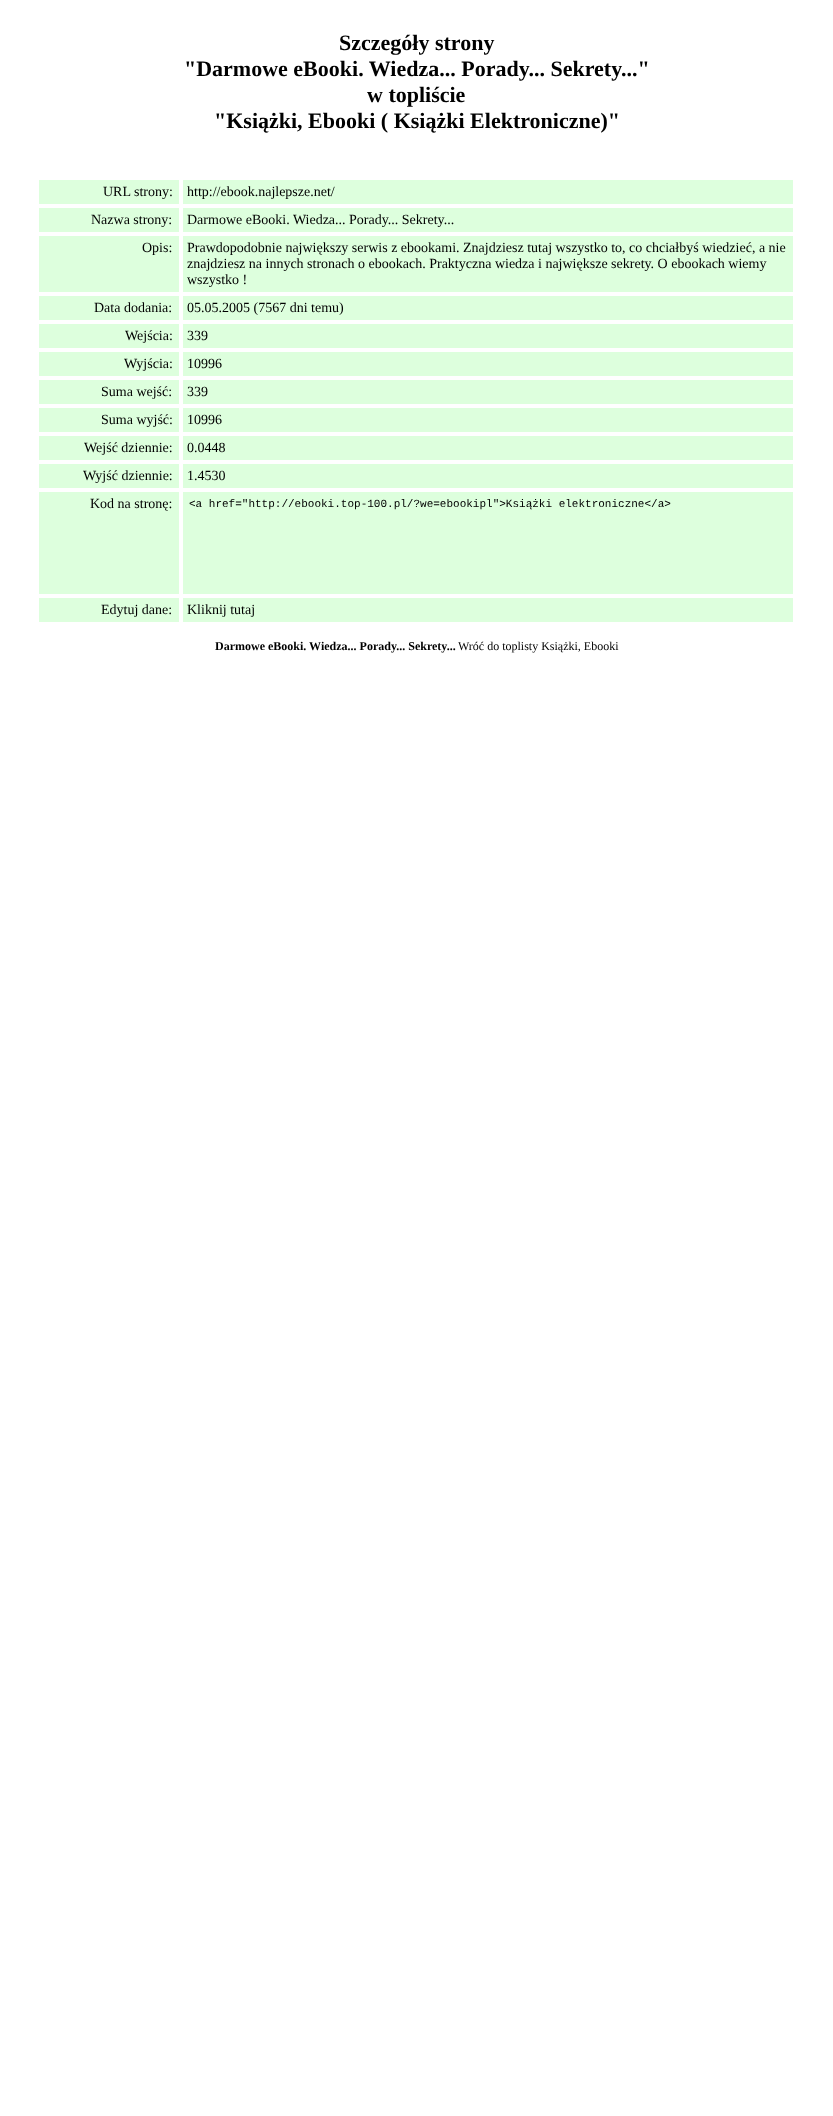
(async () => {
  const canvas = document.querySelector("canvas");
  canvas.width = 833;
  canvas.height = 2116;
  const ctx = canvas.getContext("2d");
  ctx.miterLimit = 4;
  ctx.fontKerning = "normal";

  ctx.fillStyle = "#ffffff";
  ctx.fillRect(0, 0, 833, 2116);
  for (const [x, y, w, h, color] of [
    [39, 180, 754, 24, "#ddffdd"],
    [179, 180, 4, 24, "#ffffff"],
    [39, 208, 754, 24, "#ddffdd"],
    [179, 208, 4, 24, "#ffffff"],
    [39, 236, 754, 56, "#ddffdd"],
    [179, 236, 4, 56, "#ffffff"],
    [39, 296, 754, 24, "#ddffdd"],
    [179, 296, 4, 24, "#ffffff"],
    [39, 324, 754, 24, "#ddffdd"],
    [179, 324, 4, 24, "#ffffff"],
    [39, 352, 754, 24, "#ddffdd"],
    [179, 352, 4, 24, "#ffffff"],
    [39, 380, 754, 24, "#ddffdd"],
    [179, 380, 4, 24, "#ffffff"],
    [39, 408, 754, 24, "#ddffdd"],
    [179, 408, 4, 24, "#ffffff"],
    [39, 436, 754, 24, "#ddffdd"],
    [179, 436, 4, 24, "#ffffff"],
    [39, 464, 754, 24, "#ddffdd"],
    [179, 464, 4, 24, "#ffffff"],
    [39, 492, 754, 102, "#ddffdd"],
    [179, 492, 4, 102, "#ffffff"],
    [39, 598, 754, 24, "#ddffdd"],
    [179, 598, 4, 24, "#ffffff"],
  ]) {
    ctx.fillStyle = color;
    ctx.fillRect(x, y, w, h);
  }
  ctx.font = "bold 22px Liberation Serif";
  ctx.fillStyle = "#000000";
  for (const [text, x, y] of [
    ["Szczegóły strony", 339, 50],
    ["\"Darmowe eBooki. Wiedza... Porady... Sekrety...\"", 184, 76],
    ["w topliście", 367, 102],
    ["\"Książki, Ebooki ( Książki Elektroniczne)\"", 214, 128],
  ]) {
    ctx.fillText(text, x, y);
  }
  ctx.font = "14px Liberation Serif";
  for (const [text, x, y] of [
    ["URL strony:", 103, 196],
    ["http://ebook.najlepsze.net/", 187, 196],
    ["Nazwa strony:", 91, 224],
    ["Darmowe eBooki. Wiedza... Porady... Sekrety...", 187, 224],
    ["Opis:", 142, 252],
    ["Prawdopodobnie największy serwis z ebookami. Znajdziesz tutaj wszystko to, co chciałbyś wiedzieć, a nie", 187, 252],
    ["znajdziesz na innych stronach o ebookach. Praktyczna wiedza i największe sekrety. O ebookach wiemy", 187, 268],
    ["wszystko !", 187, 284],
    ["Data dodania:", 94, 312],
    ["05.05.2005 (7567 dni temu)", 187, 312],
    ["Wejścia:", 125, 340],
    ["339", 187, 340],
    ["Wyjścia:", 124, 368],
    ["10996", 187, 368],
    ["Suma wejść:", 101, 396],
    ["339", 187, 396],
    ["Suma wyjść:", 101, 424],
    ["10996", 187, 424],
    ["Wejść dziennie:", 84, 452],
    ["0.0448", 187, 452],
    ["Wyjść dziennie:", 83, 480],
    ["1.4530", 187, 480],
    ["Kod na stronę:", 90, 508],
  ]) {
    ctx.fillText(text, x, y);
  }
  ctx.font = "11px Liberation Mono";
  ctx.fillText("<a href=\"http://ebooki.top-100.pl/?we=ebookipl\">Książki elektroniczne<\/a>", 189, 507);
  ctx.font = "14px Liberation Serif";
  ctx.fillText("Edytuj dane:", 101, 614);
  ctx.fillText("Kliknij tutaj", 187, 614);
  ctx.font = "bold 12px Liberation Serif";
  ctx.fillText("Darmowe eBooki. Wiedza... Porady... Sekrety...", 215, 650);
  ctx.font = "12px Liberation Serif";
  ctx.fillText("Wróć do toplisty Książki, Ebooki", 458, 650);
})();
